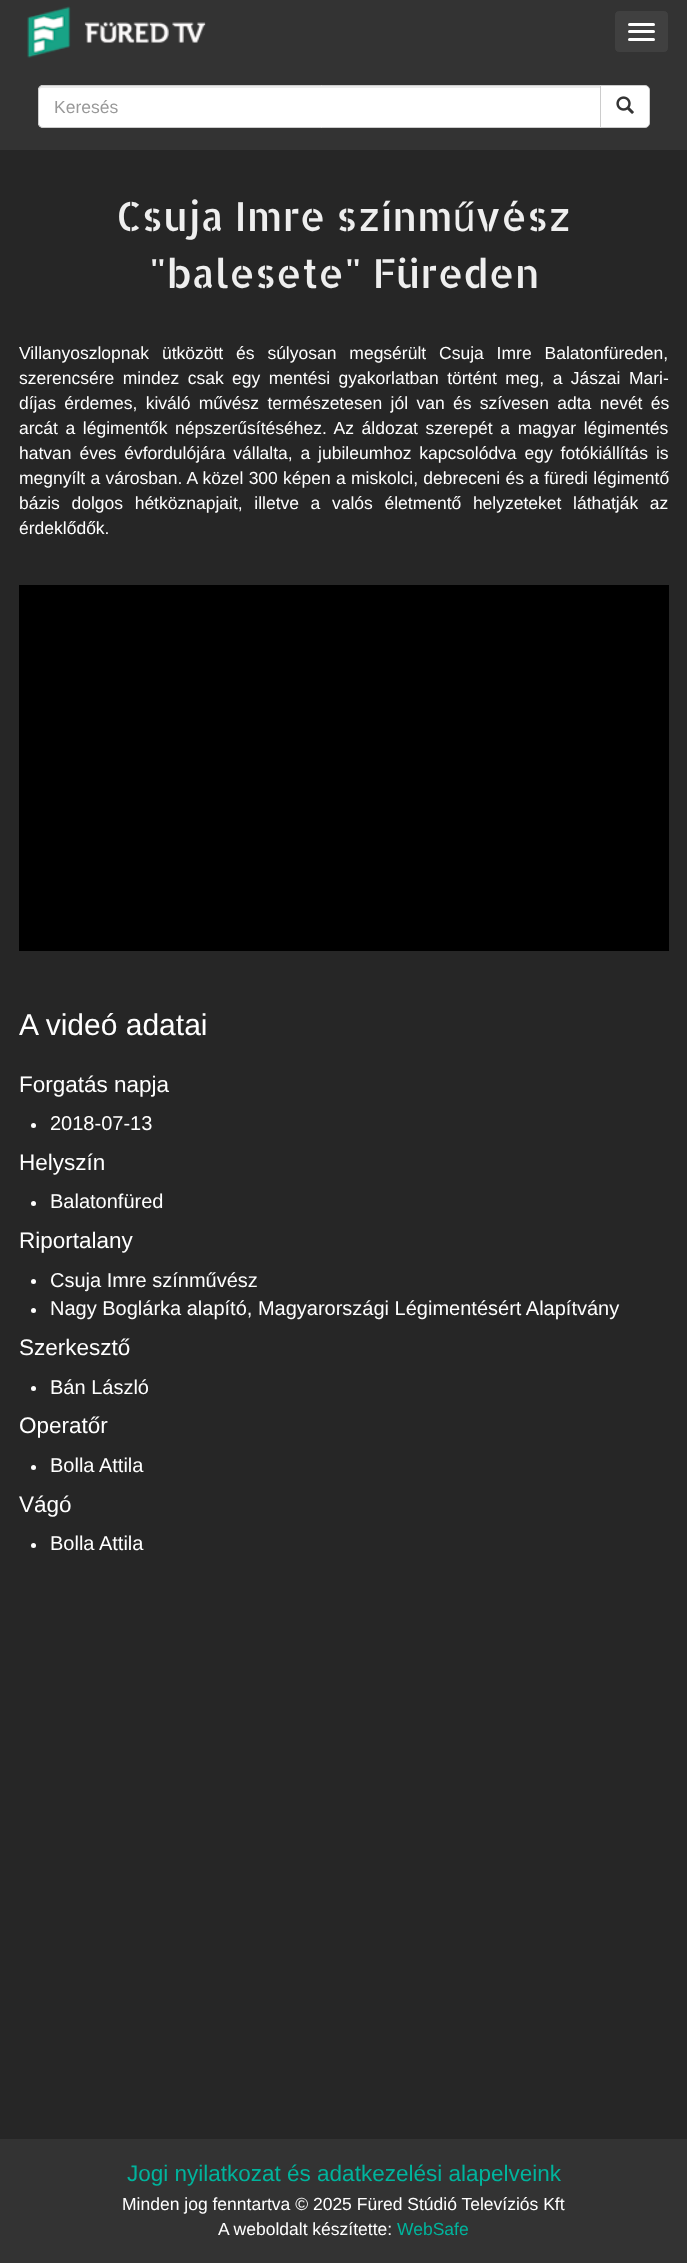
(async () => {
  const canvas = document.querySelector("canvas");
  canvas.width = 687;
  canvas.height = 2263;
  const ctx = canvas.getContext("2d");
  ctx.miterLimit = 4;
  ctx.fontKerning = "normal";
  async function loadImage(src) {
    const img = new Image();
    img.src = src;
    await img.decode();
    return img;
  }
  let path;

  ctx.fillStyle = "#262626";
  ctx.fillRect(0, 0, 687, 2263);
  ctx.fillStyle = "#333333";
  ctx.fillRect(0, 0, 687, 150);
  ctx.drawImage(await loadImage("img/1.png"), 27, 6, 179, 52);
  ctx.fillStyle = "#404040";
  ctx.beginPath();
  ctx.roundRect(614.5, 10.5, 54, 42, 4.5);
  ctx.fill();
  ctx.strokeStyle = "#333333";
  ctx.stroke();
  ctx.fillStyle = "#ffffff";
  ctx.beginPath();
  ctx.roundRect(628, 23, 27, 3, 1.5);
  ctx.fill();
  ctx.beginPath();
  ctx.roundRect(628, 30, 27, 3, 1.5);
  ctx.fill();
  ctx.beginPath();
  ctx.roundRect(628, 38, 27, 3, 1.5);
  ctx.fill();
  ctx.beginPath();
  ctx.roundRect(38, 85, 563, 43, [5, 0, 0, 5]);
  ctx.fill();
  ctx.fillStyle = "#ececec";
  path = new Path2D("M42 88H600V86H43C40 86 39 88 39 91C39 89 40 88 42 88Z");
  ctx.fill(path);
  ctx.beginPath();
  ctx.roundRect(38.5, 85.5, 562, 42, [4.5, 0, 0, 4.5]);
  ctx.strokeStyle = "#cccccc";
  ctx.stroke();
  ctx.fillStyle = "#ffffff";
  ctx.beginPath();
  ctx.roundRect(600.5, 85.5, 49, 42, [0, 4.5, 4.5, 0]);
  ctx.fill();
  ctx.stroke();
  ctx.drawImage(await loadImage("img/2.png"), 616, 96, 18, 18);
  ctx.fillStyle = "#000000";
  ctx.fillRect(19, 585, 650, 366);
  ctx.fillStyle = "#ffffff";
  ctx.beginPath();
  ctx.arc(33.5, 1125.5, 2.5, 0, Math.PI * 2);
  ctx.fill();
  ctx.beginPath();
  ctx.arc(33.5, 1203.5, 2.5, 0, Math.PI * 2);
  ctx.fill();
  ctx.beginPath();
  ctx.arc(33.5, 1281.5, 2.5, 0, Math.PI * 2);
  ctx.fill();
  ctx.beginPath();
  ctx.arc(33.5, 1310.5, 2.5, 0, Math.PI * 2);
  ctx.fill();
  ctx.beginPath();
  ctx.arc(33.5, 1388.5, 2.5, 0, Math.PI * 2);
  ctx.fill();
  ctx.beginPath();
  ctx.arc(33.5, 1467.5, 2.5, 0, Math.PI * 2);
  ctx.fill();
  ctx.beginPath();
  ctx.arc(33.5, 1545.5, 2.5, 0, Math.PI * 2);
  ctx.fill();
  ctx.fillStyle = "#333333";
  ctx.fillRect(0, 2139, 687, 124);
  ctx.font = "17.5px Liberation Sans";
  ctx.fillStyle = "#999999";
  ctx.fillText("Keresés", 54, 113);
  ctx.font = "40px Allerta Stencil";
  ctx.fillStyle = "#eeeeee";
  ctx.fillText("Csuja Imre színm", 116, 231);
  ctx.font = "40px Liberation Sans";
  ctx.fillText("ű", 453, 231);
  ctx.font = "40px Allerta Stencil";
  ctx.fillText("vész", 475, 231);
  ctx.fillText("\"balesete\" Füreden", 149, 288);
  ctx.wordSpacing = "8px";
  ctx.font = "17.5px Liberation Sans";
  ctx.fillStyle = "#ffffff";
  ctx.fillText("Villanyoszlopnak ütközött és súlyosan megsérült Csuja Imre Balatonfüreden,", 19, 359);
  ctx.wordSpacing = "3.6px";
  ctx.fillText("szerencsére mindez csak egy mentési gyakorlatban történt meg, a Jászai Mari-", 19, 384);
  ctx.wordSpacing = "3.5px";
  ctx.fillText("díjas érdemes, kiváló művész természetesen jól van és szívesen adta nevét és", 19, 409);
  ctx.wordSpacing = "2.75px";
  ctx.fillText("arcát a légimentők népszerűsítéséhez. Az áldozat szerepét a magyar légimentés", 19, 434);
  ctx.wordSpacing = "3px";
  ctx.fillText("hatvan éves évfordulójára vállalta, a jubileumhoz kapcsolódva egy fotókiállítás is", 19, 459);
  ctx.wordSpacing = "0.4px";
  ctx.fillText("megnyílt a városban. A közel 300 képen a miskolci, debreceni és a füredi légimentő", 19, 484);
  ctx.wordSpacing = "6.75px";
  ctx.fillText("bázis dolgos hétköznapjait, illetve a valós életmentő helyzeteket láthatják az", 19, 509);
  ctx.wordSpacing = "0px";
  ctx.fillText("érdeklődők.", 19, 534);
  ctx.font = "30px Liberation Sans";
  ctx.fillText("A videó adatai", 19, 1035);
  ctx.font = "22.5px Liberation Sans";
  ctx.fillText("Forgatás napja", 19, 1092);
  ctx.font = "20px Liberation Sans";
  ctx.fillText("2018-07-13", 50, 1130);
  ctx.font = "22.5px Liberation Sans";
  ctx.fillText("Helyszín", 19, 1170);
  ctx.font = "20px Liberation Sans";
  ctx.fillText("Balatonfüred", 50, 1208);
  ctx.font = "22.5px Liberation Sans";
  ctx.fillText("Riportalany", 19, 1248);
  ctx.font = "20px Liberation Sans";
  ctx.fillText("Csuja Imre színművész", 50, 1287);
  ctx.fillText("Nagy Boglárka alapító, Magyarországi Légimentésért Alapítvány", 50, 1315);
  ctx.font = "22.5px Liberation Sans";
  ctx.fillText("Szerkesztő", 19, 1355);
  ctx.font = "20px Liberation Sans";
  ctx.fillText("Bán László", 50, 1394);
  ctx.font = "22.5px Liberation Sans";
  ctx.fillText("Operatőr", 19, 1433);
  ctx.font = "20px Liberation Sans";
  ctx.fillText("Bolla Attila", 50, 1472);
  ctx.font = "22.5px Liberation Sans";
  ctx.fillText("Vágó", 19, 1512);
  ctx.font = "20px Liberation Sans";
  ctx.fillText("Bolla Attila", 50, 1550);
  ctx.font = "22.5px Liberation Sans";
  ctx.fillStyle = "#00b49d";
  ctx.fillText("Jogi nyilatkozat és adatkezelési alapelveink", 127, 2181);
  ctx.font = "17.5px Liberation Sans";
  ctx.fillStyle = "#ffffff";
  ctx.fillText("Minden jog fenntartva © 2025 Füred Stúdió Televíziós Kft", 122, 2210);
  ctx.fillText("A weboldalt készítette:", 218, 2235);
  ctx.fillStyle = "#00b49d";
  ctx.fillText("WebSafe", 397, 2235);
})();
